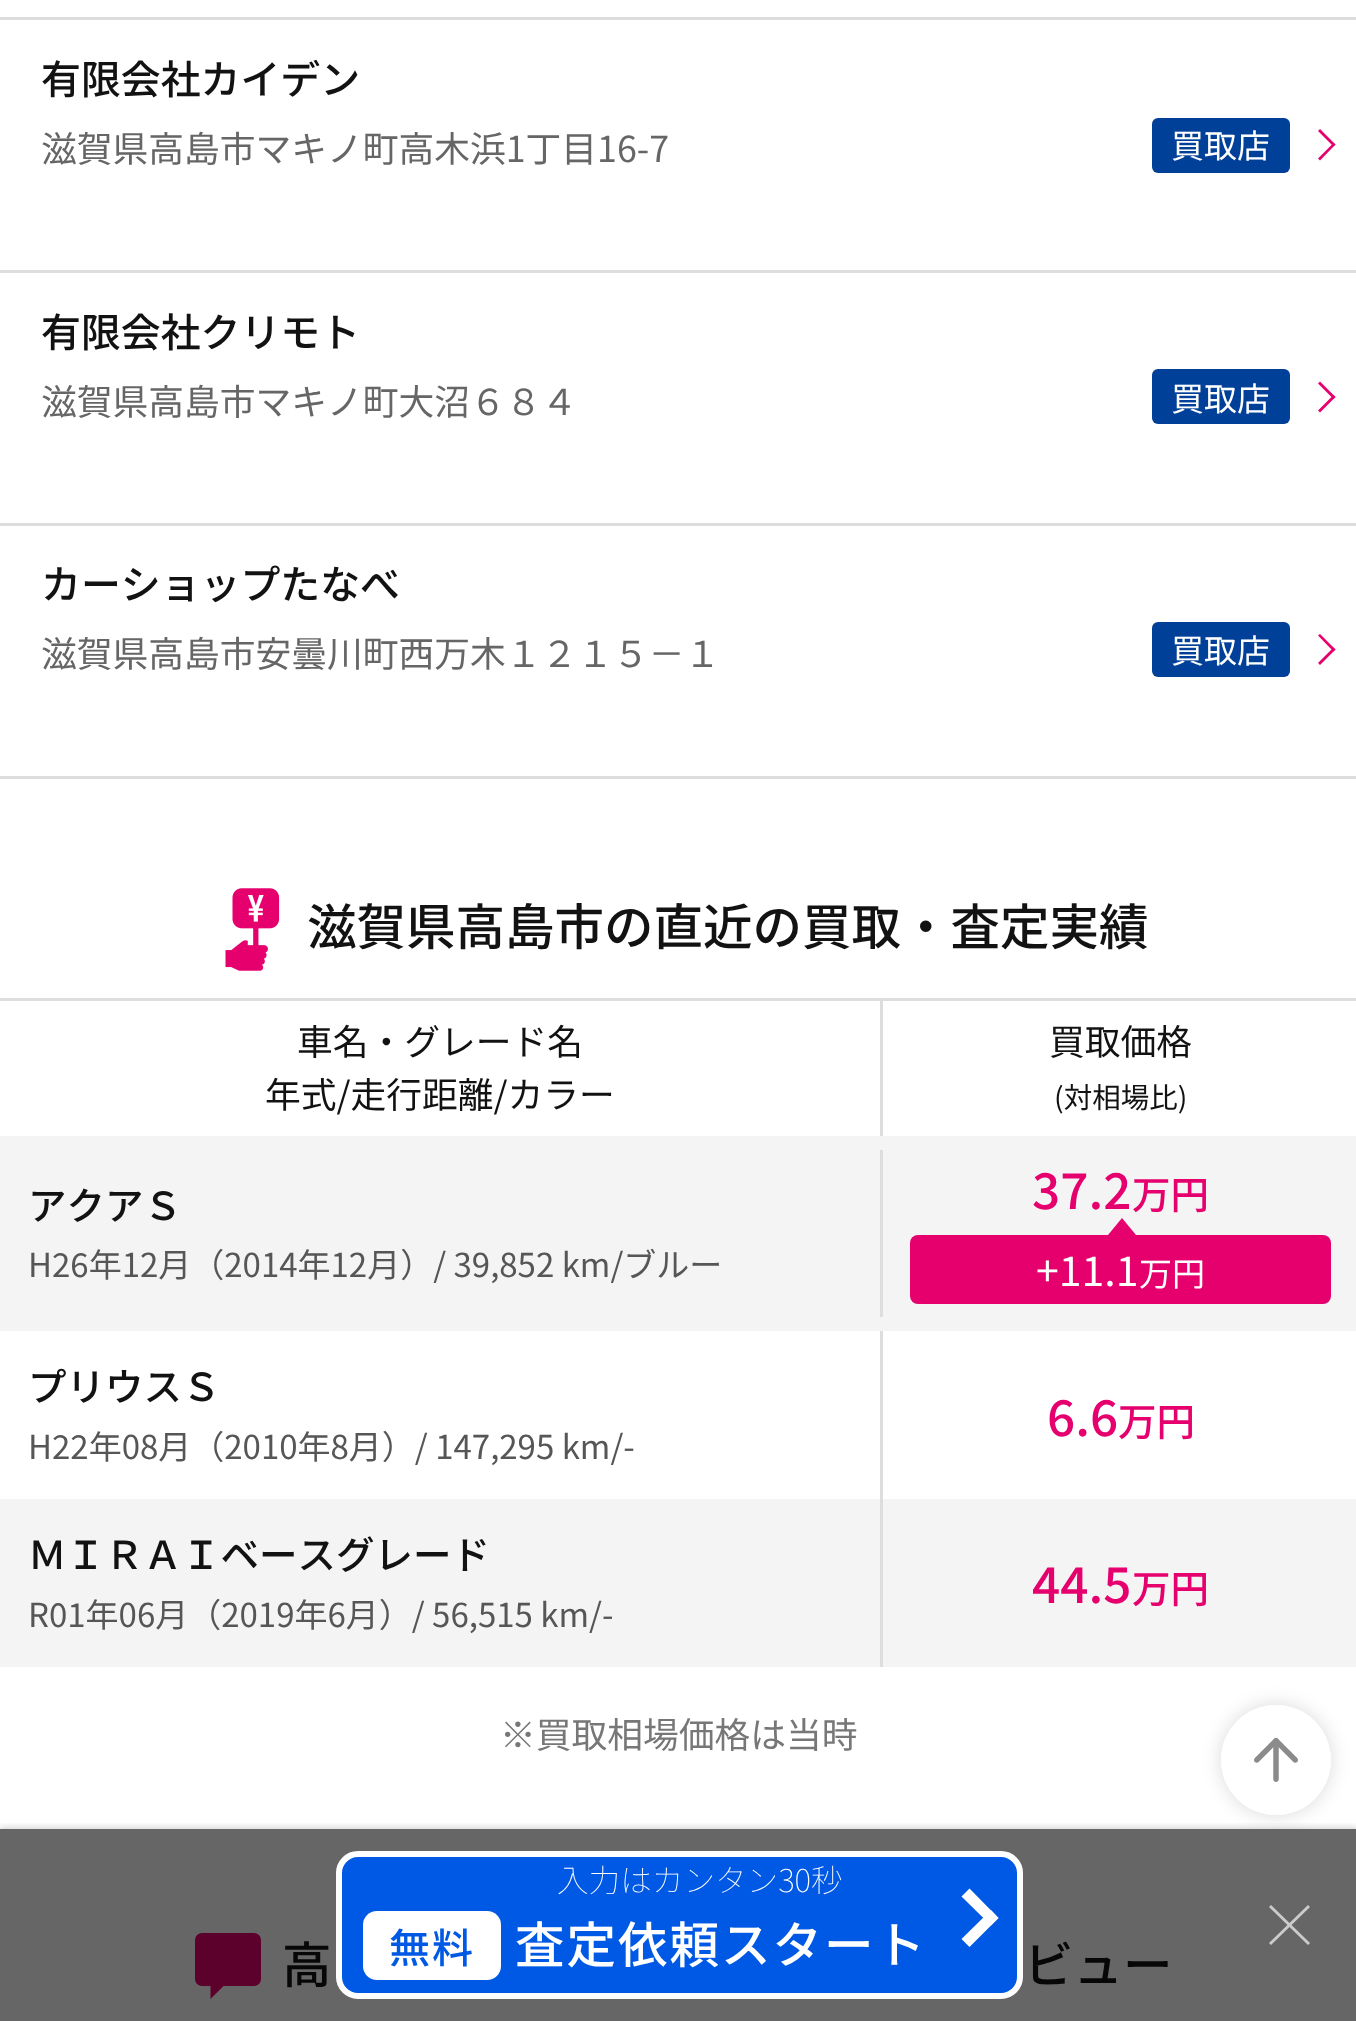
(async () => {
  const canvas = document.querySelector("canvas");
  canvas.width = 1356;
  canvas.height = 2021;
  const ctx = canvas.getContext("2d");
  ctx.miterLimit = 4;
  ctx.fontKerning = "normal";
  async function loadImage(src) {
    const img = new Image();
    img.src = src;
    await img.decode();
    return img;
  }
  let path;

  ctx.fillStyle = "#ffffff";
  ctx.fillRect(0, 0, 1356, 2021);
  ctx.fillStyle = "#dddddd";
  ctx.fillRect(0, 17, 1356, 3);
  ctx.fillRect(0, 270, 1356, 3);
  ctx.fillStyle = "#004098";
  ctx.beginPath();
  ctx.roundRect(1152, 118, 138, 55, 6);
  ctx.fill();
  ctx.fillStyle = "#e5006e";
  path = new Path2D("M1320 129L1335.5 144.5L1333.5 146.5L1318 131Z");
  ctx.fill(path);
  path = new Path2D("M1333.5 143L1335.5 144.5L1320 160.5L1318 158.5Z");
  ctx.fill(path);
  ctx.fillStyle = "#dddddd";
  ctx.fillRect(0, 523, 1356, 3);
  ctx.fillStyle = "#004098";
  ctx.beginPath();
  ctx.roundRect(1152, 369, 138, 55, 6);
  ctx.fill();
  ctx.fillStyle = "#e5006e";
  path = new Path2D("M1320 381.5L1335.5 397L1333.5 399L1318 383.5Z");
  ctx.fill(path);
  path = new Path2D("M1333.5 395L1335.5 397L1320 412.5L1318 410.5Z");
  ctx.fill(path);
  ctx.fillStyle = "#dddddd";
  ctx.fillRect(0, 776, 1356, 3);
  ctx.fillStyle = "#004098";
  ctx.beginPath();
  ctx.roundRect(1152, 622, 138, 55, 6);
  ctx.fill();
  ctx.fillStyle = "#e5006e";
  path = new Path2D("M1320 634L1335.5 649.5L1333.5 651.5L1318 635.5Z");
  ctx.fill(path);
  path = new Path2D("M1333.5 647.5L1335.5 649.5L1320 665L1318 663Z");
  ctx.fill(path);
  ctx.drawImage(await loadImage("img/1.png"), 225, 888, 55, 83);
  for (const [x, y, w, h, color] of [
    [0, 998, 1356, 3, "#dddddd"],
    [880, 1001, 3, 135, "#dddddd"],
    [0, 1136, 1356, 195, "#f4f4f4"],
    [880, 1150, 3, 167, "#dddddd"],
  ]) {
    ctx.fillStyle = color;
    ctx.fillRect(x, y, w, h);
  }
  ctx.fillStyle = "#e5006e";
  ctx.beginPath();
  ctx.roundRect(910, 1235, 421, 69, 8);
  ctx.fill();
  path = new Path2D("M1136 1235H1108L1122 1218Z");
  ctx.fill(path);
  ctx.fillStyle = "#f4f4f4";
  ctx.fillRect(0, 1499, 1356, 168);
  ctx.fillStyle = "#dddddd";
  ctx.fillRect(880, 1331, 3, 336);
  ctx.fillStyle = "#e5006e";
  ctx.beginPath();
  ctx.roundRect(195, 1933, 66, 53, 7);
  ctx.fill();
  path = new Path2D("M210.5 1974.5H235L210.5 1999Z");
  ctx.fill(path);
  ctx.save();
  path = new Path2D("M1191 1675H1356V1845H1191ZM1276 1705C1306.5 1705 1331 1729.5 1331 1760C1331 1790.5 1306.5 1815 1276 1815C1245.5 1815 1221 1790.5 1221 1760C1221 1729.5 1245.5 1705 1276 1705Z");
  ctx.clip(path, "evenodd");
  ctx.fillStyle = "rgba(0, 0, 0, 0.15)";
  ctx.filter = "blur(9.5px)";
  ctx.beginPath();
  ctx.roundRect(1221, 1705, 110, 110, 55);
  ctx.fill();
  ctx.filter = "none";
  ctx.restore();
  ctx.fillStyle = "rgba(255, 255, 255, 0.7)";
  ctx.beginPath();
  ctx.arc(1276, 1760, 55, 0, Math.PI * 2);
  ctx.fill();
  ctx.drawImage(await loadImage("img/2.png"), 1254, 1738, 44, 44);
  ctx.save();
  ctx.beginPath();
  ctx.rect(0, 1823, 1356, 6);
  ctx.clip();
  ctx.fillStyle = "rgba(0, 0, 0, 0.25)";
  ctx.filter = "blur(4px)";
  ctx.beginPath();
  ctx.rect(0, 1829, 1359, 192);
  ctx.fill();
  ctx.filter = "none";
  ctx.restore();
  ctx.font = "500 39.9px Noto Sans JP";
  ctx.fillStyle = "#121212";
  ctx.fillText("有限会社カイデン", 41, 94);
  ctx.font = "35.75px Noto Sans JP";
  ctx.fillStyle = "#666666";
  ctx.fillText("滋賀県高島市マキノ町高木浜1丁目16-7", 41, 162);
  ctx.font = "33px Noto Sans JP";
  ctx.fillStyle = "#ffffff";
  ctx.fillText("買取店", 1171, 158);
  ctx.font = "500 39.9px Noto Sans JP";
  ctx.fillStyle = "#121212";
  ctx.fillText("有限会社クリモト", 41, 347);
  ctx.font = "35.75px Noto Sans JP";
  ctx.fillStyle = "#666666";
  ctx.fillText("滋賀県高島市マキノ町大沼６８４", 41, 415);
  ctx.font = "33px Noto Sans JP";
  ctx.fillStyle = "#ffffff";
  ctx.fillText("買取店", 1171, 411);
  ctx.font = "500 39.9px Noto Sans JP";
  ctx.fillStyle = "#121212";
  ctx.fillText("カーショップたなべ", 41, 599);
  ctx.font = "35.75px Noto Sans JP";
  ctx.fillStyle = "#666666";
  ctx.fillText("滋賀県高島市安曇川町西万木１２１５－１", 41, 667);
  ctx.font = "33px Noto Sans JP";
  ctx.fillStyle = "#ffffff";
  ctx.fillText("買取店", 1171, 663);
  ctx.font = "500 49.5px Noto Sans JP";
  ctx.fillStyle = "#121212";
  ctx.fillText("滋賀県高島市の直近の買取・査定実績", 307, 945);
  ctx.font = "35.75px Noto Sans JP";
  for (const [text, x, y] of [
    ["車名・グレード名", 297, 1055],
    ["年式/走行距離/カラー", 265, 1108],
    ["買取価格", 1049, 1055],
  ]) {
    ctx.fillText(text, x, y);
  }
  ctx.font = "28.5px Noto Sans JP";
  ctx.fillText("(対相場比)", 1054, 1108);
  ctx.font = "500 38.5px Noto Sans JP";
  ctx.fillText("アクアＳ", 28, 1220);
  ctx.font = "33px Noto Sans JP";
  ctx.fillStyle = "#575656";
  ctx.fillText("H26年12月（2014年12月）/ 39,852 km/ブルー", 28, 1277);
  ctx.font = "500 49.5px Noto Sans JP";
  ctx.fillStyle = "#e5006e";
  ctx.fillText("37.2", 1032, 1209);
  ctx.font = "500 38.5px Noto Sans JP";
  ctx.fillText("万円", 1132, 1209);
  ctx.font = "41px Noto Sans JP";
  ctx.fillStyle = "#ffffff";
  ctx.fillText("+11.1", 1036, 1286);
  ctx.font = "33px Noto Sans JP";
  ctx.fillText("万円", 1139, 1286);
  ctx.font = "500 38.5px Noto Sans JP";
  ctx.fillStyle = "#121212";
  ctx.fillText("プリウスＳ", 28, 1401);
  ctx.font = "33px Noto Sans JP";
  ctx.fillStyle = "#575656";
  ctx.fillText("H22年08月（2010年8月）/ 147,295 km/-", 28, 1459);
  ctx.font = "500 49.5px Noto Sans JP";
  ctx.fillStyle = "#e5006e";
  ctx.fillText("6.6", 1047, 1436);
  ctx.font = "500 38.5px Noto Sans JP";
  ctx.fillText("万円", 1118, 1436);
  ctx.fillStyle = "#121212";
  ctx.fillText("ＭＩＲＡＩベースグレード", 28, 1569);
  ctx.font = "33px Noto Sans JP";
  ctx.fillStyle = "#575656";
  ctx.fillText("R01年06月（2019年6月）/ 56,515 km/-", 28, 1627);
  ctx.font = "500 49.5px Noto Sans JP";
  ctx.fillStyle = "#e5006e";
  ctx.fillText("44.5", 1032, 1603);
  ctx.font = "500 38.5px Noto Sans JP";
  ctx.fillText("万円", 1132, 1603);
  ctx.font = "35.75px Noto Sans JP";
  ctx.fillStyle = "#777777";
  ctx.fillText("※買取相場価格は当時", 500, 1748);
  ctx.font = "500 49.5px Noto Sans JP";
  ctx.fillStyle = "#121212";
  ctx.fillText("高", 282, 1983);
  ctx.fillText("ビュー", 1024, 1983);
  ctx.fillStyle = "rgba(0, 0, 0, 0.6)";
  ctx.fillRect(0, 1829, 1356, 192);
  ctx.fillStyle = "#0059e4";
  ctx.beginPath();
  ctx.roundRect(339, 1854, 681, 142, 19);
  ctx.fill();
  ctx.strokeStyle = "#ffffff";
  ctx.lineWidth = 6;
  ctx.stroke();
  ctx.font = "100 31.6px Noto Sans JP";
  ctx.fillStyle = "#ffffff";
  ctx.fillText("入力はカンタン30秒", 557, 1892);
  ctx.beginPath();
  ctx.roundRect(363, 1911, 138, 69, 14);
  ctx.fill();
  ctx.letterSpacing = "2px";
  ctx.font = "500 41px Noto Sans JP";
  ctx.fillStyle = "#0059e4";
  ctx.fillText("無料", 389, 1963);
  ctx.font = "500 49.5px Noto Sans JP";
  ctx.fillStyle = "#ffffff";
  ctx.fillText("査定依頼スタート", 515, 1963);
  path = new Path2D("M969.5 1888.5L998.5 1918L991 1925.5L961.5 1896.5Z");
  ctx.fill(path);
  path = new Path2D("M991 1910L998.5 1918L969.5 1947L961.5 1939Z");
  ctx.fill(path);
  ctx.fillStyle = "#cccccc";
  path = new Path2D("M1271 1905L1310 1943L1308 1945L1269 1907Z");
  ctx.fill(path);
  path = new Path2D("M1269 1943L1308 1905L1310 1907L1271 1945Z");
  ctx.fill(path);
})();
